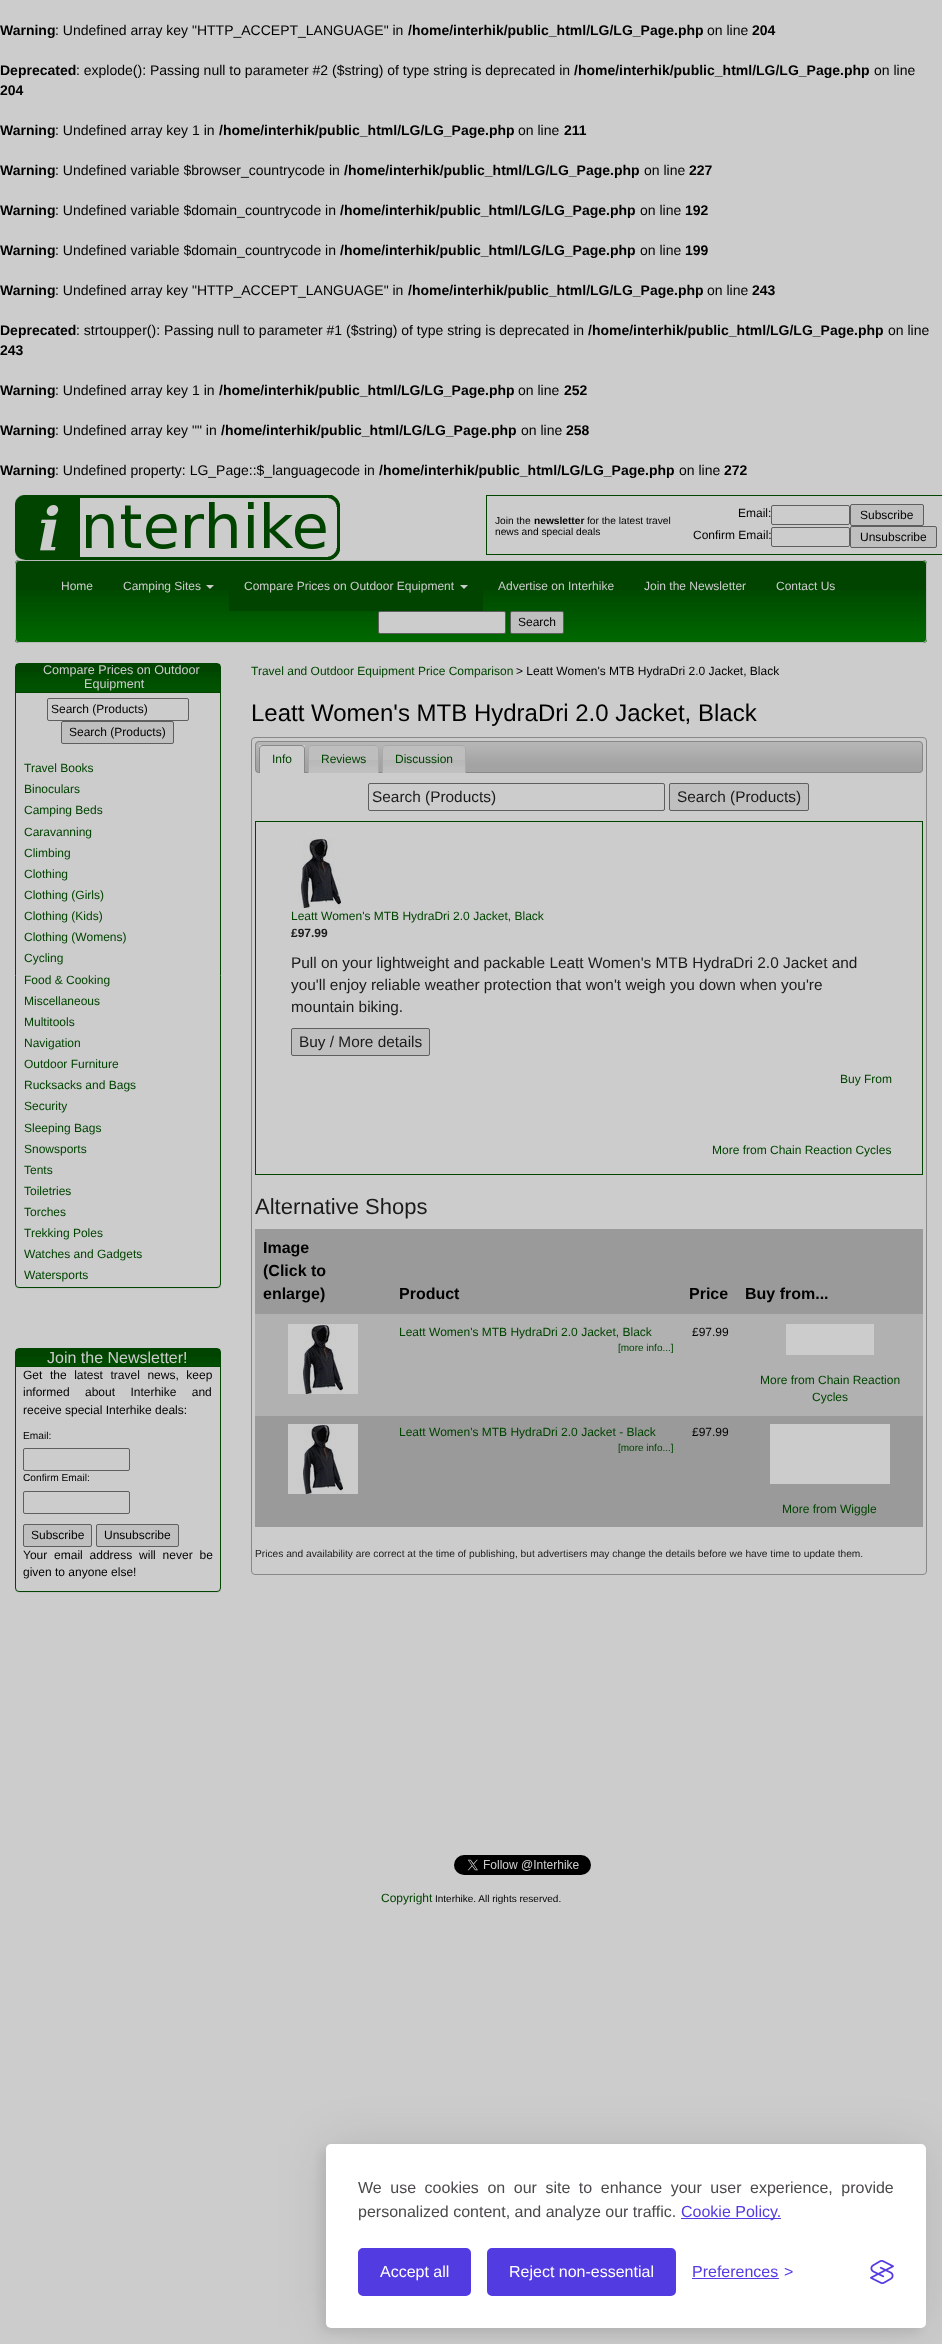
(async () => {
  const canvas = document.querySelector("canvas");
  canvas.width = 942;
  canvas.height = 2344;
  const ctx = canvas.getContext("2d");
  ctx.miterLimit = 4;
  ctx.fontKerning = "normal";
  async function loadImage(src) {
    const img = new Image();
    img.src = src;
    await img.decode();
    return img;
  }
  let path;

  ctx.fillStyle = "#cccccc";
  ctx.fillRect(0, 0, 942, 2344);
  ctx.drawImage(await loadImage("img/1.png"), 15, 495, 325, 65);
  ctx.strokeStyle = "#004400";
  ctx.strokeRect(486.5, 495.5, 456, 59);
  ctx.beginPath();
  ctx.roundRect(771.5, 505.5, 78, 19, 1.5);
  ctx.strokeStyle = "#5e5e5e";
  ctx.stroke();
  ctx.fillStyle = "#bfbfbf";
  ctx.beginPath();
  ctx.roundRect(850.5, 504.5, 73, 21, 1.5);
  ctx.fill();
  ctx.stroke();
  ctx.beginPath();
  ctx.roundRect(771.5, 527.5, 78, 19, 1.5);
  ctx.stroke();
  ctx.beginPath();
  ctx.roundRect(850.5, 526.5, 86, 21, 1.5);
  ctx.fill();
  ctx.stroke();
  ctx.fillStyle = "#004400";
  ctx.beginPath();
  ctx.roundRect(15, 560, 912, 83, 4);
  ctx.fill();
  ctx.drawImage(await loadImage("img/2.png"), 15, 590, 912, 52);
  ctx.beginPath();
  ctx.roundRect(15.5, 560.5, 911, 82, 3.5);
  ctx.strokeStyle = "#b9b9b9";
  ctx.stroke();
  ctx.fillStyle = "#cccccc";
  path = new Path2D("M206 585H214L210 589Z");
  ctx.fill(path);
  ctx.fillStyle = "#004400";
  ctx.fillRect(229, 590, 254, 21);
  ctx.fillStyle = "#cccccc";
  path = new Path2D("M460 585H468L464 589Z");
  ctx.fill(path);
  ctx.beginPath();
  ctx.roundRect(378.5, 611.5, 127, 22, 1.5);
  ctx.fill();
  ctx.strokeStyle = "#5e5e5e";
  ctx.stroke();
  ctx.fillStyle = "#bfbfbf";
  ctx.beginPath();
  ctx.roundRect(510.5, 611.5, 53, 22, 1.5);
  ctx.fill();
  ctx.stroke();
  ctx.fillStyle = "rgba(0, 0, 0, 0.05)";
  ctx.filter = "blur(0.5px)";
  ctx.beginPath();
  ctx.roundRect(15, 664, 206, 625, 4);
  ctx.fill();
  ctx.filter = "none";
  ctx.fillStyle = "#cccccc";
  ctx.beginPath();
  ctx.roundRect(15.5, 663.5, 205, 624, 3.5);
  ctx.fill();
  ctx.strokeStyle = "#004400";
  ctx.stroke();
  ctx.fillStyle = "#004400";
  ctx.fillRect(16, 664, 204, 8);
  ctx.drawImage(await loadImage("img/3.png"), 16, 672, 204, 20);
  ctx.fillRect(16, 692, 204, 1);
  ctx.beginPath();
  ctx.roundRect(47.5, 698.5, 141, 22, 1.5);
  ctx.strokeStyle = "#5e5e5e";
  ctx.stroke();
  ctx.fillStyle = "#bfbfbf";
  ctx.beginPath();
  ctx.roundRect(61.5, 721.5, 112, 22, 1.5);
  ctx.fill();
  ctx.stroke();
  ctx.fillStyle = "rgba(0, 0, 0, 0.05)";
  ctx.filter = "blur(0.5px)";
  ctx.beginPath();
  ctx.roundRect(15, 1349, 206, 244, 4);
  ctx.fill();
  ctx.filter = "none";
  ctx.fillStyle = "#cccccc";
  ctx.beginPath();
  ctx.roundRect(15.5, 1348.5, 205, 243, 3.5);
  ctx.fill();
  ctx.strokeStyle = "#004400";
  ctx.stroke();
  ctx.fillStyle = "#004400";
  ctx.fillRect(16, 1349, 204, 8);
  ctx.drawImage(await loadImage("img/4.png"), 16, 1357, 204, 9);
  ctx.fillRect(16, 1366, 204, 1);
  ctx.beginPath();
  ctx.roundRect(23.5, 1448.5, 106, 22, 1.5);
  ctx.strokeStyle = "#5e5e5e";
  ctx.stroke();
  ctx.beginPath();
  ctx.roundRect(23.5, 1491.5, 106, 22, 1.5);
  ctx.stroke();
  ctx.fillStyle = "#bfbfbf";
  ctx.beginPath();
  ctx.roundRect(23.5, 1524.5, 68, 22, 1.5);
  ctx.fill();
  ctx.stroke();
  ctx.beginPath();
  ctx.roundRect(96.5, 1524.5, 82, 22, 1.5);
  ctx.fill();
  ctx.stroke();
  ctx.beginPath();
  ctx.roundRect(251.5, 737.5, 675, 837, 3.5);
  ctx.strokeStyle = "#888888";
  ctx.stroke();
  ctx.drawImage(await loadImage("img/5.png"), 255, 741, 668, 32);
  ctx.beginPath();
  ctx.roundRect(255.5, 741.5, 667, 31, 3.5);
  ctx.stroke();
  ctx.fillStyle = "#cccccc";
  ctx.fillRect(259, 745, 46, 28);
  ctx.fillStyle = "#888888";
  path = new Path2D("M263 745H301C303 745 305 747 305 749V773H259V749C259 747 261 745 263 745ZM263 746H301C303 746 304 747 304 749V773H260V749C260 747 261 746 263 746Z");
  ctx.fill(path, "evenodd");
  ctx.drawImage(await loadImage("img/6.png"), 308, 745, 71, 28);
  ctx.fillStyle = "#a9a9a9";
  path = new Path2D("M312 745H375C377 745 379 747 379 749V773H308V749C308 747 310 745 312 745ZM312 746H375C377 746 378 747 378 749V773H309V749C309 747 310 746 312 746Z");
  ctx.fill(path, "evenodd");
  ctx.drawImage(await loadImage("img/7.png"), 382, 745, 84, 28);
  path = new Path2D("M386 745H462C464 745 466 747 466 749V773H382V749C382 747 384 745 386 745ZM386 746H462C464 746 465 747 465 749V773H383V749C383 747 384 746 386 746Z");
  ctx.fill(path, "evenodd");
  ctx.beginPath();
  ctx.roundRect(368.5, 783.5, 296, 27, 1.5);
  ctx.strokeStyle = "#5e5e5e";
  ctx.stroke();
  ctx.fillStyle = "#bfbfbf";
  ctx.beginPath();
  ctx.roundRect(669.5, 783.5, 139, 27, 1.5);
  ctx.fill();
  ctx.stroke();
  ctx.strokeStyle = "#004400";
  ctx.strokeRect(255.5, 821.5, 667, 353);
  ctx.drawImage(await loadImage("img/8.png"), 298, 838, 44, 70);
  ctx.beginPath();
  ctx.roundRect(291.5, 1028.5, 138, 27, 1.5);
  ctx.fill();
  ctx.strokeStyle = "#5e5e5e";
  ctx.stroke();
  ctx.fillStyle = "#9a9a9a";
  ctx.fillRect(255, 1229, 668, 85);
  ctx.fillStyle = "#b1b1b1";
  ctx.fillRect(255, 1315, 668, 100);
  ctx.drawImage(await loadImage("img/9.png"), 288, 1324, 70, 70);
  for (const [x, y, w, h, color] of [
    [255, 1314, 668, 1, "#b1b1b1"],
    [786, 1324, 88, 31, "#cccccc"],
    [255, 1416, 668, 111, "#9a9a9a"],
  ]) {
    ctx.fillStyle = color;
    ctx.fillRect(x, y, w, h);
  }
  ctx.drawImage(await loadImage("img/9.png"), 288, 1424, 70, 70);
  ctx.fillStyle = "#b1b1b1";
  ctx.fillRect(255, 1415, 668, 1);
  ctx.fillStyle = "#cccccc";
  ctx.fillRect(770, 1424, 120, 60);
  ctx.drawImage(await loadImage("img/10.png"), 454, 1855, 137, 20);
  ctx.fillStyle = "rgba(0, 0, 0, 0.1)";
  ctx.filter = "blur(25px)";
  ctx.beginPath();
  ctx.roundRect(326, 2144, 600, 184, 5);
  ctx.fill();
  ctx.filter = "none";
  ctx.fillStyle = "rgba(0, 0, 0, 0.07)";
  ctx.filter = "blur(5px)";
  ctx.beginPath();
  ctx.roundRect(321, 2149, 600, 184, 5);
  ctx.fill();
  ctx.filter = "none";
  ctx.fillStyle = "#ffffff";
  ctx.beginPath();
  ctx.roundRect(326, 2144, 600, 184, 5);
  ctx.fill();
  ctx.fillStyle = "#533be2";
  ctx.fillRect(681, 2218, 100, 1);
  ctx.beginPath();
  ctx.roundRect(359, 2249, 111, 46, 4);
  ctx.fill();
  ctx.strokeStyle = "#533be2";
  ctx.lineWidth = 2;
  ctx.stroke();
  ctx.beginPath();
  ctx.roundRect(488, 2249, 187, 46, 4);
  ctx.fill();
  ctx.stroke();
  ctx.fillRect(692, 2278, 87, 1);
  ctx.drawImage(await loadImage("img/11.png"), 870, 2260, 24, 24);
  ctx.font = "bold 14px Liberation Sans";
  ctx.fillStyle = "#000000";
  ctx.fillText("Warning", 0, 35);
  ctx.font = "14px Liberation Sans";
  ctx.fillText(": Undefined array key \"HTTP_ACCEPT_LANGUAGE\" in", 55, 35);
  ctx.font = "bold 14px Liberation Sans";
  ctx.fillText("/home/interhik/public_html/LG/LG_Page.php", 408, 35);
  ctx.font = "14px Liberation Sans";
  ctx.fillText("on line", 707, 35);
  ctx.font = "bold 14px Liberation Sans";
  ctx.fillText("204", 752, 35);
  ctx.fillText("Deprecated", 0, 75);
  ctx.font = "14px Liberation Sans";
  ctx.fillText(": explode(): Passing null to parameter #2 ($string) of type string is deprecated in", 76, 75);
  ctx.font = "bold 14px Liberation Sans";
  ctx.fillText("/home/interhik/public_html/LG/LG_Page.php", 574, 75);
  ctx.font = "14px Liberation Sans";
  ctx.fillText("on line", 874, 75);
  ctx.font = "bold 14px Liberation Sans";
  ctx.fillText("204", 0, 95);
  ctx.fillText("Warning", 0, 135);
  ctx.font = "14px Liberation Sans";
  ctx.fillText(": Undefined array key 1 in", 55, 135);
  ctx.font = "bold 14px Liberation Sans";
  ctx.fillText("/home/interhik/public_html/LG/LG_Page.php", 219, 135);
  ctx.font = "14px Liberation Sans";
  ctx.fillText("on line", 518, 135);
  ctx.font = "bold 14px Liberation Sans";
  ctx.fillText("211", 564, 135);
  ctx.fillText("Warning", 0, 175);
  ctx.font = "14px Liberation Sans";
  ctx.fillText(": Undefined variable $browser_countrycode in", 55, 175);
  ctx.font = "bold 14px Liberation Sans";
  ctx.fillText("/home/interhik/public_html/LG/LG_Page.php", 344, 175);
  ctx.font = "14px Liberation Sans";
  ctx.fillText("on line", 644, 175);
  ctx.font = "bold 14px Liberation Sans";
  ctx.fillText("227", 689, 175);
  ctx.fillText("Warning", 0, 215);
  ctx.font = "14px Liberation Sans";
  ctx.fillText(": Undefined variable $domain_countrycode in", 55, 215);
  ctx.font = "bold 14px Liberation Sans";
  ctx.fillText("/home/interhik/public_html/LG/LG_Page.php", 340, 215);
  ctx.font = "14px Liberation Sans";
  ctx.fillText("on line", 640, 215);
  ctx.font = "bold 14px Liberation Sans";
  ctx.fillText("192", 685, 215);
  ctx.fillText("Warning", 0, 255);
  ctx.font = "14px Liberation Sans";
  ctx.fillText(": Undefined variable $domain_countrycode in", 55, 255);
  ctx.font = "bold 14px Liberation Sans";
  ctx.fillText("/home/interhik/public_html/LG/LG_Page.php", 340, 255);
  ctx.font = "14px Liberation Sans";
  ctx.fillText("on line", 640, 255);
  ctx.font = "bold 14px Liberation Sans";
  ctx.fillText("199", 685, 255);
  ctx.fillText("Warning", 0, 295);
  ctx.font = "14px Liberation Sans";
  ctx.fillText(": Undefined array key \"HTTP_ACCEPT_LANGUAGE\" in", 55, 295);
  ctx.font = "bold 14px Liberation Sans";
  ctx.fillText("/home/interhik/public_html/LG/LG_Page.php", 408, 295);
  ctx.font = "14px Liberation Sans";
  ctx.fillText("on line", 707, 295);
  ctx.font = "bold 14px Liberation Sans";
  ctx.fillText("243", 752, 295);
  ctx.fillText("Deprecated", 0, 335);
  ctx.font = "14px Liberation Sans";
  ctx.fillText(": strtoupper(): Passing null to parameter #1 ($string) of type string is deprecated in", 76, 335);
  ctx.font = "bold 14px Liberation Sans";
  ctx.fillText("/home/interhik/public_html/LG/LG_Page.php", 588, 335);
  ctx.font = "14px Liberation Sans";
  ctx.fillText("on line", 888, 335);
  ctx.font = "bold 14px Liberation Sans";
  ctx.fillText("243", 0, 355);
  ctx.fillText("Warning", 0, 395);
  ctx.font = "14px Liberation Sans";
  ctx.fillText(": Undefined array key 1 in", 55, 395);
  ctx.font = "bold 14px Liberation Sans";
  ctx.fillText("/home/interhik/public_html/LG/LG_Page.php", 219, 395);
  ctx.font = "14px Liberation Sans";
  ctx.fillText("on line", 518, 395);
  ctx.font = "bold 14px Liberation Sans";
  ctx.fillText("252", 564, 395);
  ctx.fillText("Warning", 0, 435);
  ctx.font = "14px Liberation Sans";
  ctx.fillText(": Undefined array key \"\" in", 55, 435);
  ctx.font = "bold 14px Liberation Sans";
  ctx.fillText("/home/interhik/public_html/LG/LG_Page.php", 221, 435);
  ctx.font = "14px Liberation Sans";
  ctx.fillText("on line", 521, 435);
  ctx.font = "bold 14px Liberation Sans";
  ctx.fillText("258", 566, 435);
  ctx.fillText("Warning", 0, 475);
  ctx.font = "14px Liberation Sans";
  ctx.fillText(": Undefined property: LG_Page::$_languagecode in", 55, 475);
  ctx.font = "bold 14px Liberation Sans";
  ctx.fillText("/home/interhik/public_html/LG/LG_Page.php", 379, 475);
  ctx.font = "14px Liberation Sans";
  ctx.fillText("on line", 679, 475);
  ctx.font = "bold 14px Liberation Sans";
  ctx.fillText("272", 724, 475);
  ctx.font = "12px Liberation Sans";
  ctx.fillText("Email:", 738, 517);
  ctx.fillText("Subscribe", 860, 519);
  ctx.font = "10.2px Liberation Sans";
  ctx.fillText("Join the", 495, 524);
  ctx.font = "bold 10.2px Liberation Sans";
  ctx.fillText("newsletter", 534, 524);
  ctx.font = "10.2px Liberation Sans";
  ctx.fillText("for the latest travel", 587, 524);
  ctx.fillText("news and special deals", 495, 535);
  ctx.font = "12px Liberation Sans";
  ctx.fillText("Confirm Email:", 693, 539);
  ctx.fillText("Unsubscribe", 860, 541);
  ctx.fillStyle = "#cccccc";
  for (const [text, x, y] of [
    ["Home", 61, 590],
    ["Camping Sites", 123, 590],
    ["Compare Prices on Outdoor Equipment", 244, 590],
    ["Advertise on Interhike", 498, 590],
    ["Join the Newsletter", 644, 590],
    ["Contact Us", 776, 590],
  ]) {
    ctx.fillText(text, x, y);
  }
  ctx.fillStyle = "#000000";
  ctx.fillText("Search", 518, 626);
  ctx.font = "12.6px Liberation Sans";
  ctx.fillStyle = "#cccccc";
  ctx.fillText("Compare Prices on Outdoor", 43, 674);
  ctx.fillText("Equipment", 84, 688);
  ctx.font = "12px Liberation Sans";
  ctx.fillStyle = "#000000";
  ctx.fillText("Search (Products)", 51, 713);
  ctx.fillText("Search (Products)", 69, 736);
  ctx.fillStyle = "#004400";
  for (const [text, x, y] of [
    ["Travel Books", 24, 772],
    ["Binoculars", 24, 793],
    ["Camping Beds", 24, 814],
    ["Caravanning", 24, 836],
    ["Climbing", 24, 857],
    ["Clothing", 24, 878],
    ["Clothing (Girls)", 24, 899],
    ["Clothing (Kids)", 24, 920],
    ["Clothing (Womens)", 24, 941],
    ["Cycling", 24, 962],
    ["Food & Cooking", 24, 984],
    ["Miscellaneous", 24, 1005],
    ["Multitools", 24, 1026],
    ["Navigation", 24, 1047],
    ["Outdoor Furniture", 24, 1068],
    ["Rucksacks and Bags", 24, 1089],
    ["Security", 24, 1110],
    ["Sleeping Bags", 24, 1132],
    ["Snowsports", 24, 1153],
    ["Tents", 24, 1174],
    ["Toiletries", 24, 1195],
    ["Torches", 24, 1216],
    ["Trekking Poles", 24, 1237],
    ["Watches and Gadgets", 24, 1258],
    ["Watersports", 24, 1279],
  ]) {
    ctx.fillText(text, x, y);
  }
  ctx.font = "16px Liberation Sans";
  ctx.fillStyle = "#cccccc";
  ctx.fillText("Join the Newsletter!", 47, 1363);
  ctx.wordSpacing = "4.25px";
  ctx.font = "12px Liberation Sans";
  ctx.fillStyle = "#000000";
  ctx.fillText("Get the latest travel news, keep", 23, 1379);
  ctx.wordSpacing = "12px";
  ctx.fillText("informed about Interhike and", 23, 1396);
  ctx.wordSpacing = "0px";
  ctx.fillText("receive special Interhike deals:", 23, 1414);
  ctx.font = "10.2px Liberation Sans";
  ctx.fillText("Email:", 23, 1439);
  ctx.fillText("Confirm Email:", 23, 1481);
  ctx.font = "12px Liberation Sans";
  ctx.fillText("Subscribe", 31, 1539);
  ctx.fillText("Unsubscribe", 104, 1539);
  ctx.wordSpacing = "3.5px";
  ctx.fillText("Your email address will never be", 23, 1559);
  ctx.wordSpacing = "0px";
  ctx.fillText("given to anyone else!", 23, 1576);
  ctx.fillStyle = "#004400";
  ctx.fillText("Travel and Outdoor Equipment Price Comparison", 251, 675);
  ctx.fillStyle = "#000000";
  ctx.fillText("> Leatt Women's MTB HydraDri 2.0 Jacket, Black", 516, 675);
  ctx.font = "24px Liberation Sans";
  ctx.fillText("Leatt Women's MTB HydraDri 2.0 Jacket, Black", 251, 721);
  ctx.font = "12px Liberation Sans";
  ctx.fillStyle = "#004400";
  for (const [text, x, y] of [
    ["Info", 272, 763],
    ["Reviews", 321, 763],
    ["Discussion", 395, 763],
  ]) {
    ctx.fillText(text, x, y);
  }
  ctx.font = "15.4px Liberation Sans";
  ctx.fillStyle = "#1b1b1b";
  ctx.fillText("Search (Products)", 372, 802);
  ctx.fillText("Search (Products)", 677, 802);
  ctx.font = "12px Liberation Sans";
  ctx.fillStyle = "#004400";
  ctx.fillText("Leatt Women's MTB HydraDri 2.0 Jacket, Black", 291, 920);
  ctx.font = "bold 12px Liberation Sans";
  ctx.fillStyle = "#1b1b1b";
  ctx.fillText("£97.99", 291, 937);
  ctx.font = "15.4px Liberation Sans";
  for (const [text, x, y] of [
    ["Pull on your lightweight and packable Leatt Women's MTB HydraDri 2.0 Jacket and", 291, 968],
    ["you'll enjoy reliable weather protection that won't weigh you down when you're", 291, 990],
    ["mountain biking.", 291, 1012],
    ["Buy / More details", 299, 1047],
  ]) {
    ctx.fillText(text, x, y);
  }
  ctx.font = "12px Liberation Sans";
  ctx.fillStyle = "#004400";
  ctx.fillText("Buy From", 840, 1083);
  ctx.fillText("More from Chain Reaction Cycles", 712, 1154);
  ctx.font = "22px Liberation Sans";
  ctx.fillStyle = "#1b1b1b";
  ctx.fillText("Alternative Shops", 255, 1214);
  ctx.font = "bold 16px Liberation Sans";
  ctx.fillStyle = "#000000";
  for (const [text, x, y] of [
    ["Image", 263, 1253],
    ["(Click to", 263, 1276],
    ["enlarge)", 263, 1299],
    ["Product", 399, 1299],
    ["Price", 689, 1299],
    ["Buy from...", 745, 1299],
  ]) {
    ctx.fillText(text, x, y);
  }
  ctx.font = "12px Liberation Sans";
  ctx.fillStyle = "#004400";
  ctx.fillText("Leatt Women's MTB HydraDri 2.0 Jacket, Black", 399, 1336);
  ctx.font = "10px Liberation Sans";
  ctx.fillText("[more info...]", 618, 1351);
  ctx.font = "12px Liberation Sans";
  ctx.fillStyle = "#000000";
  ctx.fillText("£97.99", 692, 1336);
  ctx.fillStyle = "#004400";
  for (const [text, x, y] of [
    ["More from Chain Reaction", 760, 1384],
    ["Cycles", 812, 1401],
    ["Leatt Women's MTB HydraDri 2.0 Jacket - Black", 399, 1436],
  ]) {
    ctx.fillText(text, x, y);
  }
  ctx.font = "10px Liberation Sans";
  ctx.fillText("[more info...]", 618, 1451);
  ctx.font = "12px Liberation Sans";
  ctx.fillStyle = "#000000";
  ctx.fillText("£97.99", 692, 1436);
  ctx.fillStyle = "#004400";
  ctx.fillText("More from Wiggle", 782, 1513);
  ctx.font = "10.2px Liberation Sans";
  ctx.fillStyle = "#1b1b1b";
  ctx.fillText("Prices and availability are correct at the time of publishing, but advertisers may change the details before we have time to update them.", 255, 1557);
  ctx.font = "12px Liberation Sans";
  ctx.fillStyle = "#004400";
  ctx.fillText("Copyright", 381, 1902);
  ctx.font = "10px Liberation Sans";
  ctx.fillStyle = "#000000";
  ctx.fillText("Interhike. All rights reserved.", 435, 1902);
  ctx.wordSpacing = "4.1px";
  ctx.font = "16px Liberation Sans";
  ctx.fillStyle = "#4b494b";
  ctx.fillText("We use cookies on our site to enhance your user experience, provide", 358, 2193);
  ctx.wordSpacing = "0px";
  ctx.fillText("personalized content, and analyze our traffic.", 358, 2217);
  ctx.fillStyle = "#533be2";
  ctx.fillText("Cookie Policy.", 681, 2217);
  ctx.fillStyle = "#ffffff";
  ctx.fillText("Accept all", 380, 2277);
  ctx.fillText("Reject non-essential", 509, 2277);
  ctx.fillStyle = "#533be2";
  ctx.fillText("Preferences", 692, 2277);
  ctx.fillText(">", 784, 2277);
})();
